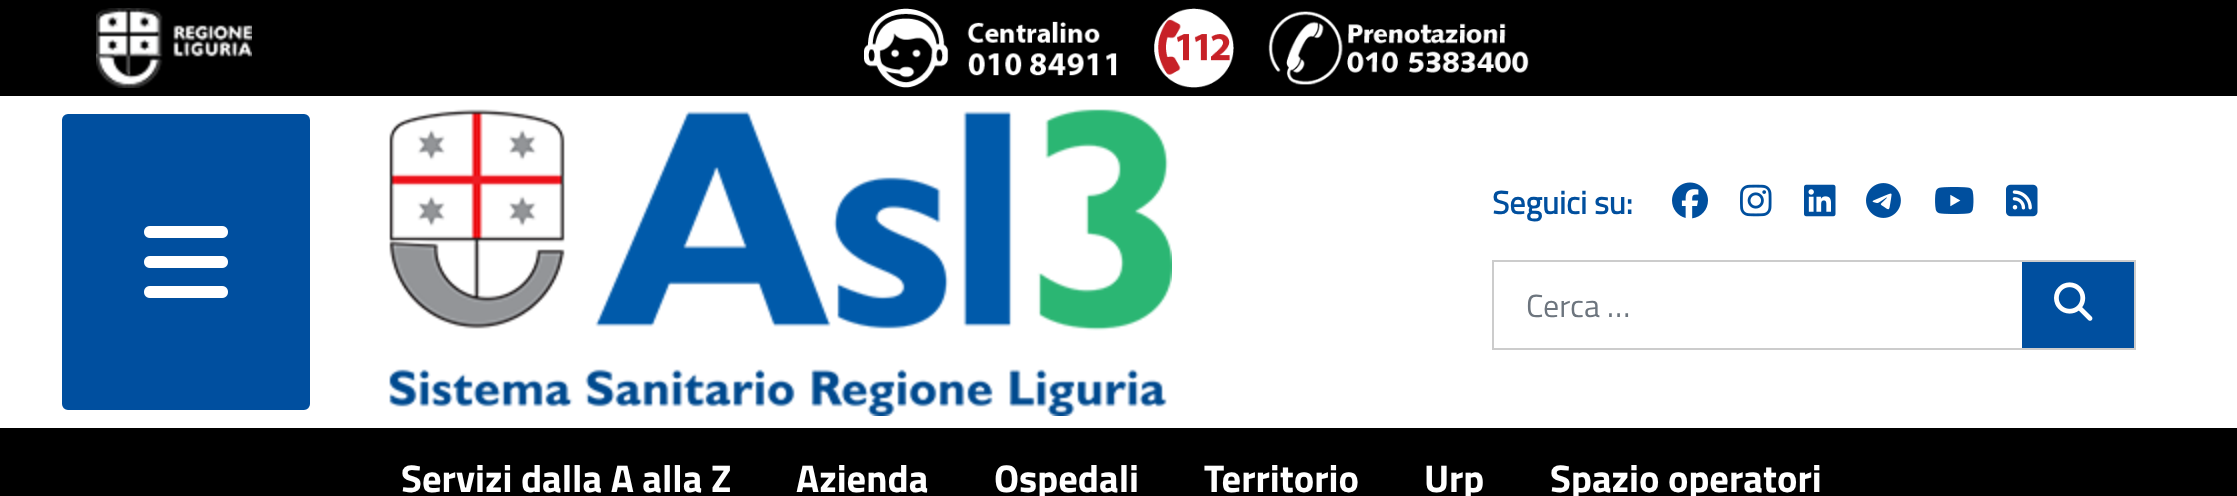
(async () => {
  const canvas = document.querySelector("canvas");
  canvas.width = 2237;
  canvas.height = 496;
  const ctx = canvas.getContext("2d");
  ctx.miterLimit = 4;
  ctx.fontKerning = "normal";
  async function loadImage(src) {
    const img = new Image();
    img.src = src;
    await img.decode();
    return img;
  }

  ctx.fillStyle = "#ffffff";
  ctx.fillRect(0, 0, 2237, 496);
  ctx.fillStyle = "#000000";
  ctx.fillRect(0, 0, 2237, 96);
  ctx.drawImage(await loadImage("img/1.png"), 96, 8, 156, 80);
  ctx.drawImage(await loadImage("img/2.png"), 864, 8, 253, 80);
  ctx.drawImage(await loadImage("img/3.png"), 1154, 8, 80, 80);
  ctx.drawImage(await loadImage("img/4.png"), 1268, 11, 261, 74);
  ctx.fillStyle = "#004f9f";
  ctx.beginPath();
  ctx.roundRect(61, 113, 250, 298, 7);
  ctx.fill();
  ctx.strokeStyle = "#ffffff";
  ctx.lineWidth = 2;
  ctx.stroke();
  ctx.drawImage(await loadImage("img/5.png"), 144, 226, 84, 72);
  ctx.drawImage(await loadImage("img/6.png"), 389, 109, 783, 307);
  ctx.drawImage(await loadImage("img/7.png"), 1672, 182, 36, 37);
  ctx.drawImage(await loadImage("img/8.png"), 1740, 184, 32, 33);
  ctx.drawImage(await loadImage("img/9.png"), 1804, 184, 32, 33);
  ctx.drawImage(await loadImage("img/10.png"), 1866, 183, 35, 35);
  ctx.drawImage(await loadImage("img/11.png"), 1935, 187, 39, 27);
  ctx.drawImage(await loadImage("img/12.png"), 2006, 184, 32, 33);
  ctx.strokeStyle = "#cccccc";
  ctx.strokeRect(1493, 261, 642, 88);
  ctx.fillRect(2022, 262, 112, 86);
  ctx.drawImage(await loadImage("img/13.png"), 2054, 282, 39, 39);
  ctx.fillStyle = "#000000";
  ctx.fillRect(0, 428, 2237, 68);
  ctx.font = "bold 32px Titillium Web";
  ctx.fillStyle = "#004f9e";
  ctx.fillText("Seguici su:", 1492, 214);
  ctx.font = "32px Titillium Web";
  ctx.fillStyle = "#6d757e";
  ctx.fillText("Cerca …", 1526, 317);
  ctx.font = "bold 38.5px 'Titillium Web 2'";
  ctx.fillStyle = "#ffffff";
  for (const [text, x, y] of [
    ["Servizi dalla A alla Z", 401, 492],
    ["Azienda", 796, 492],
    ["Ospedali", 994, 492],
    ["Territorio", 1204, 492],
    ["Urp", 1424, 492],
    ["Spazio operatori", 1550, 492],
  ]) {
    ctx.fillText(text, x, y);
  }
})();
